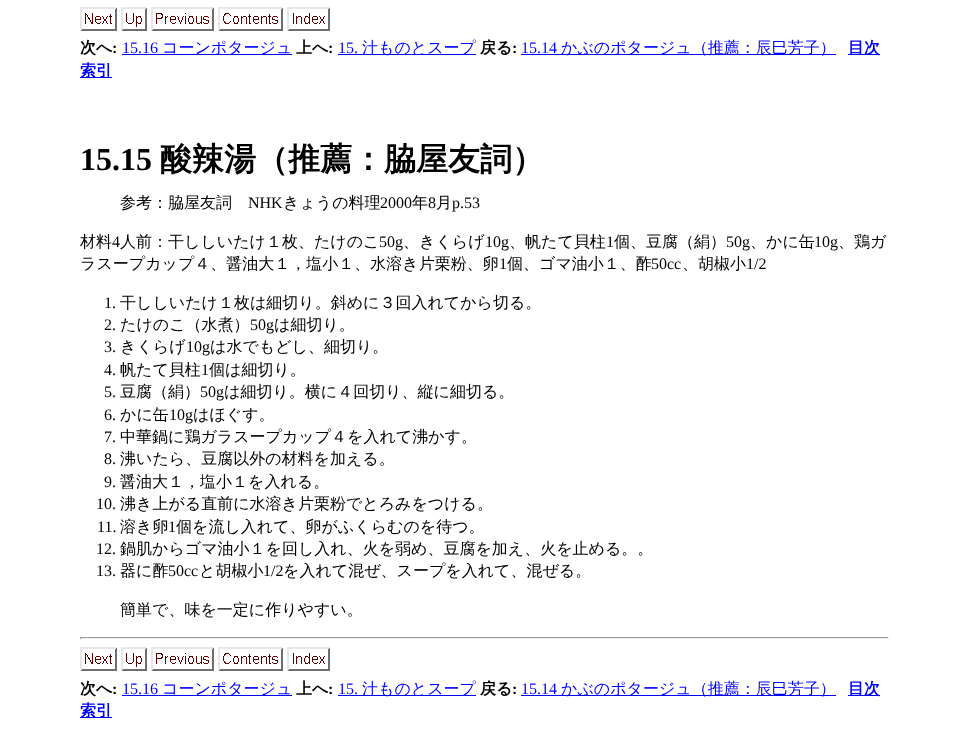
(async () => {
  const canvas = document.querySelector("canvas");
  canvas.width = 969;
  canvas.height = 730;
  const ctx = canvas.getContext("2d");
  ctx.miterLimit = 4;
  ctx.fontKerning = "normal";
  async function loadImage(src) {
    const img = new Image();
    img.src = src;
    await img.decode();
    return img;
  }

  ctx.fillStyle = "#ffffff";
  ctx.fillRect(0, 0, 969, 730);
  ctx.drawImage(await loadImage("img/1.png"), 80, 7, 37, 24);
  ctx.drawImage(await loadImage("img/2.png"), 121, 7, 26, 24);
  ctx.drawImage(await loadImage("img/3.png"), 151, 7, 63, 24);
  ctx.drawImage(await loadImage("img/4.png"), 218, 7, 65, 24);
  ctx.drawImage(await loadImage("img/5.png"), 287, 7, 43, 24);
  for (const [x, y, w, h, color] of [
    [122, 54, 170, 1, "#0000ff"],
    [338, 54, 138, 1, "#0000ff"],
    [521, 54, 315, 1, "#0000ff"],
    [848, 54, 32, 1, "#0000ff"],
    [80, 77, 32, 1, "#0000ff"],
    [80, 637, 809, 1, "#9f9f9f"],
    [888, 637, 1, 2, "#eeeeee"],
    [80, 638, 809, 1, "#eeeeee"],
    [80, 637, 1, 2, "#9f9f9f"],
  ]) {
    ctx.fillStyle = color;
    ctx.fillRect(x, y, w, h);
  }
  ctx.drawImage(await loadImage("img/1.png"), 80, 647, 37, 24);
  ctx.drawImage(await loadImage("img/2.png"), 121, 647, 26, 24);
  ctx.drawImage(await loadImage("img/3.png"), 151, 647, 63, 24);
  ctx.drawImage(await loadImage("img/4.png"), 218, 647, 65, 24);
  ctx.drawImage(await loadImage("img/5.png"), 287, 647, 43, 24);
  for (const [x, y, w, h, color] of [
    [122, 695, 170, 1, "#0000ff"],
    [338, 695, 138, 1, "#0000ff"],
    [521, 695, 315, 1, "#0000ff"],
    [848, 695, 32, 1, "#0000ff"],
    [80, 717, 32, 1, "#0000ff"],
  ]) {
    ctx.fillStyle = color;
    ctx.fillRect(x, y, w, h);
  }
  ctx.font = "bold 16px WenQuanYi Zen Hei";
  ctx.fillStyle = "#000000";
  ctx.fillText("次へ", 80, 53);
  ctx.font = "bold 16px Liberation Serif";
  ctx.fillText(":", 112, 53);
  ctx.font = "16px Liberation Serif";
  ctx.fillStyle = "#0000ff";
  ctx.fillText("15.16", 122, 53);
  ctx.font = "500 16px WenQuanYi Zen Hei";
  ctx.fillText("コーンポタージュ", 162, 53);
  ctx.font = "bold 16px WenQuanYi Zen Hei";
  ctx.fillStyle = "#000000";
  ctx.fillText("上へ", 296, 53);
  ctx.font = "bold 16px Liberation Serif";
  ctx.fillText(":", 328, 53);
  ctx.font = "16px Liberation Serif";
  ctx.fillStyle = "#0000ff";
  ctx.fillText("15.", 338, 53);
  ctx.font = "500 16px WenQuanYi Zen Hei";
  ctx.fillText("汁ものとスープ", 362, 53);
  ctx.font = "bold 16px WenQuanYi Zen Hei";
  ctx.fillStyle = "#000000";
  ctx.fillText("戻る", 480, 53);
  ctx.font = "bold 16px Liberation Serif";
  ctx.fillText(":", 512, 53);
  ctx.font = "16px Liberation Serif";
  ctx.fillStyle = "#0000ff";
  ctx.fillText("15.14", 521, 53);
  ctx.font = "500 16px WenQuanYi Zen Hei";
  ctx.fillText("かぶのポタージュ（推薦：辰巳芳子）", 561, 53);
  ctx.font = "bold 16px WenQuanYi Zen Hei";
  ctx.fillText("目次", 848, 53);
  ctx.fillText("索引", 80, 76);
  ctx.font = "bold 32px Liberation Serif";
  ctx.fillStyle = "#000000";
  ctx.fillText("15.15", 80, 170);
  ctx.font = "bold 32px WenQuanYi Zen Hei";
  ctx.fillText("酸辣湯（推薦：脇屋友詞）", 160, 170);
  ctx.font = "500 16px WenQuanYi Zen Hei";
  ctx.fillText("参考：脇屋友詞", 120, 208);
  ctx.font = "16px Liberation Serif";
  ctx.fillText("NHK", 248, 208);
  ctx.font = "500 16px WenQuanYi Zen Hei";
  ctx.fillText("きょうの料理", 283, 208);
  ctx.font = "16px Liberation Serif";
  ctx.fillText("2000", 380, 208);
  ctx.font = "500 16px WenQuanYi Zen Hei";
  ctx.fillText("年", 412, 208);
  ctx.font = "16px Liberation Serif";
  ctx.fillText("8", 428, 208);
  ctx.font = "500 16px WenQuanYi Zen Hei";
  ctx.fillText("月", 436, 208);
  ctx.font = "16px Liberation Serif";
  ctx.fillText("p.53", 452, 208);
  ctx.font = "500 16px WenQuanYi Zen Hei";
  ctx.fillText("材料", 80, 247);
  ctx.font = "16px Liberation Serif";
  ctx.fillText("4", 112, 247);
  ctx.font = "500 16px WenQuanYi Zen Hei";
  ctx.fillText("人前：干ししいたけ１枚、たけのこ", 120, 247);
  ctx.font = "16px Liberation Serif";
  ctx.fillText("50g", 379, 247);
  ctx.font = "500 16px WenQuanYi Zen Hei";
  ctx.fillText("、きくらげ", 403, 247);
  ctx.font = "16px Liberation Serif";
  ctx.fillText("10g", 485, 247);
  ctx.font = "500 16px WenQuanYi Zen Hei";
  ctx.fillText("、帆たて貝柱", 509, 247);
  ctx.font = "16px Liberation Serif";
  ctx.fillText("1", 606, 247);
  ctx.font = "500 16px WenQuanYi Zen Hei";
  ctx.fillText("個、豆腐（絹）", 614, 247);
  ctx.font = "16px Liberation Serif";
  ctx.fillText("50g", 726, 247);
  ctx.font = "500 16px WenQuanYi Zen Hei";
  ctx.fillText("、かに缶", 750, 247);
  ctx.font = "16px Liberation Serif";
  ctx.fillText("10g", 814, 247);
  ctx.font = "500 16px WenQuanYi Zen Hei";
  ctx.fillText("、鶏ガ", 838, 247);
  ctx.fillText("ラスープカップ４、醤油大１，塩小１、水溶き片栗粉、卵", 80, 269);
  ctx.font = "16px Liberation Serif";
  ctx.fillText("1", 499, 269);
  ctx.font = "500 16px WenQuanYi Zen Hei";
  ctx.fillText("個、ゴマ油小１、酢", 507, 269);
  ctx.font = "16px Liberation Serif";
  ctx.fillText("50cc", 651, 269);
  ctx.font = "500 16px WenQuanYi Zen Hei";
  ctx.fillText("、胡椒小", 682, 269);
  ctx.font = "16px Liberation Serif";
  ctx.fillText("1/2", 746, 269);
  ctx.fillText("1.", 104, 308);
  ctx.font = "500 16px WenQuanYi Zen Hei";
  ctx.fillText("干ししいたけ１枚は細切り。斜めに３回入れてから切る。", 120, 308);
  ctx.font = "16px Liberation Serif";
  ctx.fillText("2.", 104, 330);
  ctx.font = "500 16px WenQuanYi Zen Hei";
  ctx.fillText("たけのこ（水煮）", 120, 330);
  ctx.font = "16px Liberation Serif";
  ctx.fillText("50g", 250, 330);
  ctx.font = "500 16px WenQuanYi Zen Hei";
  ctx.fillText("は細切り。", 274, 330);
  ctx.font = "16px Liberation Serif";
  ctx.fillText("3.", 104, 352);
  ctx.font = "500 16px WenQuanYi Zen Hei";
  ctx.fillText("きくらげ", 120, 352);
  ctx.font = "16px Liberation Serif";
  ctx.fillText("10g", 186, 352);
  ctx.font = "500 16px WenQuanYi Zen Hei";
  ctx.fillText("は水でもどし、細切り。", 210, 352);
  ctx.font = "16px Liberation Serif";
  ctx.fillText("4.", 104, 375);
  ctx.font = "500 16px WenQuanYi Zen Hei";
  ctx.fillText("帆たて貝柱", 120, 375);
  ctx.font = "16px Liberation Serif";
  ctx.fillText("1", 201, 375);
  ctx.font = "500 16px WenQuanYi Zen Hei";
  ctx.fillText("個は細切り。", 209, 375);
  ctx.font = "16px Liberation Serif";
  ctx.fillText("5.", 104, 397);
  ctx.font = "500 16px WenQuanYi Zen Hei";
  ctx.fillText("豆腐（絹）", 120, 397);
  ctx.font = "16px Liberation Serif";
  ctx.fillText("50g", 200, 397);
  ctx.font = "500 16px WenQuanYi Zen Hei";
  ctx.fillText("は細切り。横に４回切り、縦に細切る。", 224, 397);
  ctx.font = "16px Liberation Serif";
  ctx.fillText("6.", 104, 420);
  ctx.font = "500 16px WenQuanYi Zen Hei";
  ctx.fillText("かに缶", 120, 420);
  ctx.font = "16px Liberation Serif";
  ctx.fillText("10g", 169, 420);
  ctx.font = "500 16px WenQuanYi Zen Hei";
  ctx.fillText("はほぐす。", 193, 420);
  ctx.font = "16px Liberation Serif";
  ctx.fillText("7.", 104, 442);
  ctx.font = "500 16px WenQuanYi Zen Hei";
  ctx.fillText("中華鍋に鶏ガラスープカップ４を入れて沸かす。", 120, 442);
  ctx.font = "16px Liberation Serif";
  ctx.fillText("8.", 104, 464);
  ctx.font = "500 16px WenQuanYi Zen Hei";
  ctx.fillText("沸いたら、豆腐以外の材料を加える。", 120, 464);
  ctx.font = "16px Liberation Serif";
  ctx.fillText("9.", 104, 487);
  ctx.font = "500 16px WenQuanYi Zen Hei";
  ctx.fillText("醤油大１，塩小１を入れる。", 120, 487);
  ctx.font = "16px Liberation Serif";
  ctx.fillText("10.", 96, 509);
  ctx.font = "500 16px WenQuanYi Zen Hei";
  ctx.fillText("沸き上がる直前に水溶き片栗粉でとろみをつける。", 120, 509);
  ctx.font = "16px Liberation Serif";
  ctx.fillText("11.", 97, 532);
  ctx.font = "500 16px WenQuanYi Zen Hei";
  ctx.fillText("溶き卵", 120, 532);
  ctx.font = "16px Liberation Serif";
  ctx.fillText("1", 168, 532);
  ctx.font = "500 16px WenQuanYi Zen Hei";
  ctx.fillText("個を流し入れて、卵がふくらむのを待つ。", 176, 532);
  ctx.font = "16px Liberation Serif";
  ctx.fillText("12.", 96, 554);
  ctx.font = "500 16px WenQuanYi Zen Hei";
  ctx.fillText("鍋肌からゴマ油小１を回し入れ、火を弱め、豆腐を加え、火を止める。。", 120, 554);
  ctx.font = "16px Liberation Serif";
  ctx.fillText("13.", 96, 576);
  ctx.font = "500 16px WenQuanYi Zen Hei";
  ctx.fillText("器に酢", 120, 576);
  ctx.font = "16px Liberation Serif";
  ctx.fillText("50cc", 168, 576);
  ctx.font = "500 16px WenQuanYi Zen Hei";
  ctx.fillText("と胡椒小", 199, 576);
  ctx.font = "16px Liberation Serif";
  ctx.fillText("1/2", 263, 576);
  ctx.font = "500 16px WenQuanYi Zen Hei";
  ctx.fillText("を入れて混ぜ、スープを入れて、混ぜる。", 283, 576);
  ctx.fillText("簡単で、味を一定に作りやすい。", 120, 615);
  ctx.font = "bold 16px WenQuanYi Zen Hei";
  ctx.fillText("次へ", 80, 694);
  ctx.font = "bold 16px Liberation Serif";
  ctx.fillText(":", 112, 694);
  ctx.font = "16px Liberation Serif";
  ctx.fillStyle = "#0000ff";
  ctx.fillText("15.16", 122, 694);
  ctx.font = "500 16px WenQuanYi Zen Hei";
  ctx.fillText("コーンポタージュ", 162, 694);
  ctx.font = "bold 16px WenQuanYi Zen Hei";
  ctx.fillStyle = "#000000";
  ctx.fillText("上へ", 296, 694);
  ctx.font = "bold 16px Liberation Serif";
  ctx.fillText(":", 328, 694);
  ctx.font = "16px Liberation Serif";
  ctx.fillStyle = "#0000ff";
  ctx.fillText("15.", 338, 694);
  ctx.font = "500 16px WenQuanYi Zen Hei";
  ctx.fillText("汁ものとスープ", 362, 694);
  ctx.font = "bold 16px WenQuanYi Zen Hei";
  ctx.fillStyle = "#000000";
  ctx.fillText("戻る", 480, 694);
  ctx.font = "bold 16px Liberation Serif";
  ctx.fillText(":", 512, 694);
  ctx.font = "16px Liberation Serif";
  ctx.fillStyle = "#0000ff";
  ctx.fillText("15.14", 521, 694);
  ctx.font = "500 16px WenQuanYi Zen Hei";
  ctx.fillText("かぶのポタージュ（推薦：辰巳芳子）", 561, 694);
  ctx.font = "bold 16px WenQuanYi Zen Hei";
  ctx.fillText("目次", 848, 694);
  ctx.fillText("索引", 80, 716);
})();
